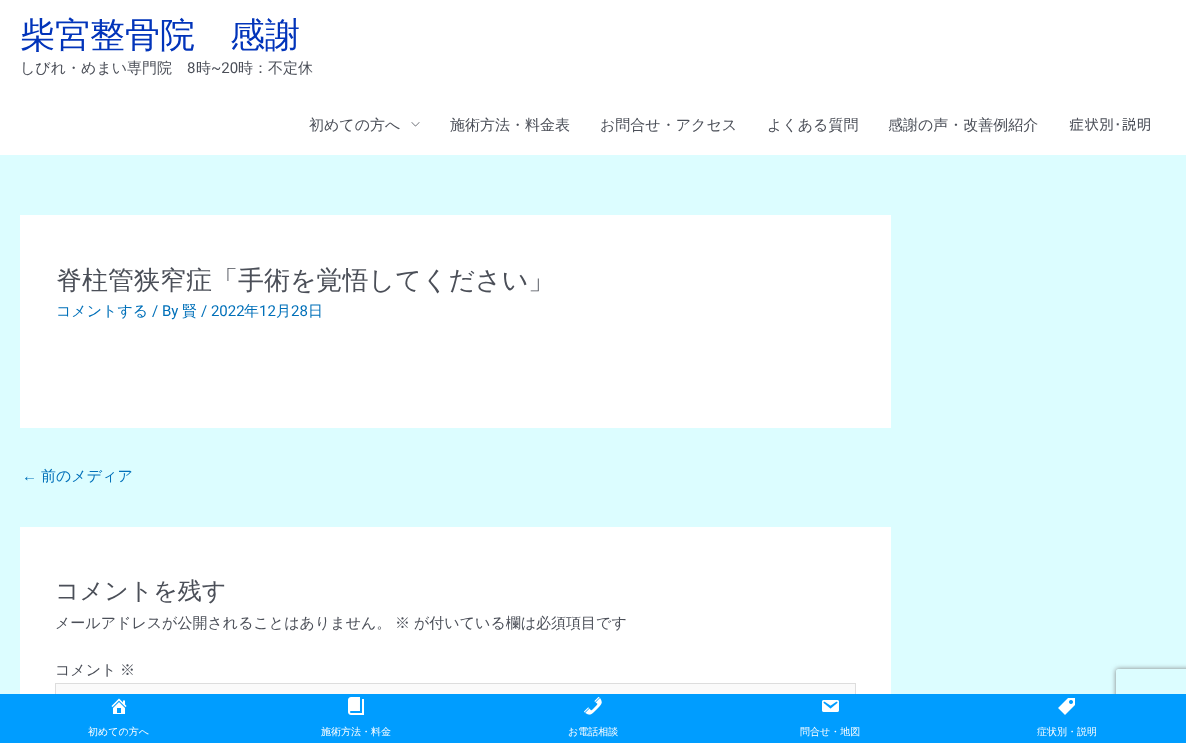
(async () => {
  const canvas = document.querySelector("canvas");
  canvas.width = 1186;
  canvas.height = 743;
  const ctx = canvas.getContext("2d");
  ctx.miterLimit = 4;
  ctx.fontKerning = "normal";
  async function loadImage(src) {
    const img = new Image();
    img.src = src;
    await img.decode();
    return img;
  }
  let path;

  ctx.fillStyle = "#dcfdff";
  ctx.fillRect(0, 0, 1186, 743);
  ctx.fillStyle = "#ffffff";
  ctx.fillRect(0, 0, 1186, 155);
  ctx.drawImage(await loadImage("img/1.png"), 411, 122, 9, 5);
  for (const [x, y, w, h, color] of [
    [20, 215, 871, 213, "#ffffff"],
    [20, 527, 871, 167, "#ffffff"],
    [56, 684, 799, 10, "#fafafa"],
  ]) {
    ctx.fillStyle = color;
    ctx.fillRect(x, y, w, h);
  }
  ctx.strokeStyle = "#dddddd";
  ctx.strokeRect(55.5, 683.5, 800, 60);
  ctx.save();
  path = new Path2D("M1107 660H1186V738H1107ZM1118 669H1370C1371 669 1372 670 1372 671V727C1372 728 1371 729 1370 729H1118C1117 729 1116 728 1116 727V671C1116 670 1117 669 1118 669Z");
  ctx.clip(path, "evenodd");
  ctx.fillStyle = "#808080";
  ctx.filter = "blur(2.5px)";
  ctx.beginPath();
  ctx.roundRect(1116, 669, 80, 60, 2);
  ctx.fill();
  ctx.filter = "none";
  ctx.restore();
  ctx.fillStyle = "#009dff";
  ctx.fillRect(0, 694, 1186, 49);
  ctx.drawImage(await loadImage("img/2.png"), 111, 698, 16, 16);
  ctx.drawImage(await loadImage("img/3.png"), 348, 697, 16, 18);
  ctx.drawImage(await loadImage("img/4.png"), 584, 696, 18, 19);
  ctx.drawImage(await loadImage("img/5.png"), 822, 700, 17, 12);
  ctx.drawImage(await loadImage("img/6.png"), 1058, 698, 17, 17);
  ctx.font = "500 35px WenQuanYi Zen Hei";
  ctx.fillStyle = "#0234ba";
  ctx.fillText("柴宮整骨院　感謝", 20, 47);
  ctx.font = "500 15px WenQuanYi Zen Hei";
  ctx.fillStyle = "#4b4f58";
  ctx.fillText("しびれ・めまい専門院", 20, 73);
  ctx.font = "15px Roboto";
  ctx.fillText("8", 187, 73);
  ctx.font = "500 15px WenQuanYi Zen Hei";
  ctx.fillText("時", 196, 73);
  ctx.font = "15px Roboto";
  ctx.fillText("~20", 211, 73);
  ctx.font = "500 15px WenQuanYi Zen Hei";
  for (const [text, x, y] of [
    ["時：不定休", 238, 73],
    ["初めての方へ", 309, 130],
    ["施術方法・料金表", 450, 130],
    ["お問合せ・アクセス", 600, 130],
    ["よくある質問", 767, 130],
    ["感謝の声・改善例紹介", 888, 130],
  ]) {
    ctx.fillText(text, x, y);
  }
  ctx.font = "15px IPAPGothic";
  ctx.fillText("症状別･説明", 1069, 130);
  ctx.font = "500 26px WenQuanYi Zen Hei";
  ctx.fillText("脊柱管狭窄症「手術を覚悟してください」", 56, 289);
  ctx.font = "500 15px WenQuanYi Zen Hei";
  ctx.fillStyle = "#0170b9";
  ctx.fillText("コメントする", 56, 316);
  ctx.font = "15px Roboto";
  ctx.fillText("/ By", 152, 316);
  ctx.font = "500 15px WenQuanYi Zen Hei";
  ctx.fillText("賢", 182, 316);
  ctx.font = "15px Roboto";
  ctx.fillText("/ 2022", 201, 316);
  ctx.font = "500 15px WenQuanYi Zen Hei";
  ctx.fillText("年", 244, 316);
  ctx.font = "15px Roboto";
  ctx.fillText("12", 259, 316);
  ctx.font = "500 15px WenQuanYi Zen Hei";
  ctx.fillText("月", 276, 316);
  ctx.font = "15px Roboto";
  ctx.fillText("28", 291, 316);
  ctx.font = "500 15px WenQuanYi Zen Hei";
  ctx.fillText("日", 308, 316);
  ctx.font = "15px Liberation Sans";
  ctx.fillText("←", 22, 481);
  ctx.font = "500 15px WenQuanYi Zen Hei";
  ctx.fillText("前のメディア", 41, 481);
  ctx.font = "500 24px WenQuanYi Zen Hei";
  ctx.fillStyle = "#4b4f58";
  ctx.fillText("コメントを残す", 55, 599);
  ctx.font = "500 15px WenQuanYi Zen Hei";
  for (const [text, x, y] of [
    ["メールアドレスが公開されることはありません。", 55, 628],
    ["※", 395, 628],
    ["が付いている欄は必須項目です", 414, 628],
    ["コメント", 55, 675],
    ["※", 120, 675],
  ]) {
    ctx.fillText(text, x, y);
  }
  ctx.font = "500 10px WenQuanYi Zen Hei";
  ctx.fillStyle = "#ffffff";
  for (const [text, x, y] of [
    ["初めての方へ", 88, 735],
    ["施術方法・料金", 321, 735],
    ["お電話相談", 568, 735],
    ["問合せ・地図", 800, 735],
    ["症状別・説明", 1037, 735],
  ]) {
    ctx.fillText(text, x, y);
  }
})();
